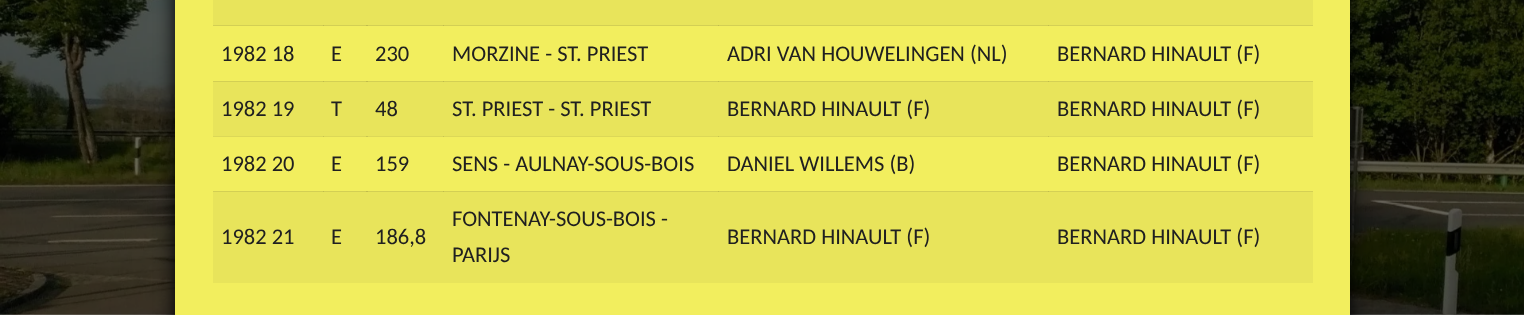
(async () => {
  const canvas = document.querySelector("canvas");
  canvas.width = 1524;
  canvas.height = 315;
  const ctx = canvas.getContext("2d");
  ctx.miterLimit = 4;
  ctx.fontKerning = "normal";
  async function loadImage(src) {
    const img = new Image();
    img.src = src;
    await img.decode();
    return img;
  }

  ctx.fillStyle = "#ffffff";
  ctx.fillRect(0, 0, 1524, 315);
  ctx.drawImage(await loadImage("img/1.png"), 0, 0, 1524, 315);
  ctx.fillStyle = "#000000";
  ctx.filter = "blur(9.5px)";
  ctx.beginPath();
  ctx.roundRect(175, -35, 1175, 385, 6);
  ctx.fill();
  ctx.filter = "none";
  for (const [x, y, w, h, color] of [
    [175, 0, 1175, 315, "#f2ee5e"],
    [213, 0, 836, 26, "#e8e45b"],
    [1049, 0, 264, 25, "#e8e45b"],
    [1048, 25, 265, 1, "#d4d055"],
    [718, 25, 331, 1, "rgba(32, 32, 32, 0.1)"],
    [443, 25, 276, 1, "rgba(32, 32, 32, 0.1)"],
    [366, 25, 78, 1, "rgba(32, 32, 32, 0.1)"],
    [323, 25, 45, 1, "rgba(32, 32, 32, 0.1)"],
    [213, 25, 111, 1, "rgba(32, 32, 32, 0.1)"],
    [213, 81, 836, 55, "#e8e45b"],
    [1048, 81, 265, 1, "#d4d055"],
    [718, 81, 331, 1, "rgba(32, 32, 32, 0.1)"],
    [443, 81, 276, 1, "rgba(32, 32, 32, 0.1)"],
    [366, 81, 78, 1, "rgba(32, 32, 32, 0.1)"],
    [323, 81, 45, 1, "rgba(32, 32, 32, 0.1)"],
    [213, 81, 111, 1, "rgba(32, 32, 32, 0.1)"],
    [1049, 82, 264, 54, "#e8e45b"],
    [1048, 136, 265, 1, "#ddd958"],
    [718, 136, 331, 1, "rgba(32, 32, 32, 0.1)"],
    [443, 136, 276, 1, "rgba(32, 32, 32, 0.1)"],
    [366, 136, 78, 1, "rgba(32, 32, 32, 0.1)"],
    [323, 136, 45, 1, "rgba(32, 32, 32, 0.1)"],
    [213, 136, 111, 1, "rgba(32, 32, 32, 0.1)"],
    [213, 191, 836, 92, "#e8e45b"],
    [1048, 191, 265, 1, "#d4d055"],
    [718, 191, 331, 1, "rgba(32, 32, 32, 0.1)"],
    [443, 191, 276, 1, "rgba(32, 32, 32, 0.1)"],
    [366, 191, 78, 1, "rgba(32, 32, 32, 0.1)"],
    [323, 191, 45, 1, "rgba(32, 32, 32, 0.1)"],
    [213, 191, 111, 1, "rgba(32, 32, 32, 0.1)"],
    [1049, 192, 264, 91, "#e8e45b"],
  ]) {
    ctx.fillStyle = color;
    ctx.fillRect(x, y, w, h);
  }
  ctx.font = "22.5px Carlito";
  ctx.fillStyle = "#202020";
  for (const [text, x, y] of [
    ["1982 18", 221, 61],
    ["E", 331, 61],
    ["230", 375, 61],
    ["MORZINE - ST. PRIEST", 452, 61],
    ["ADRI VAN HOUWELINGEN (NL)", 727, 61],
    ["BERNARD HINAULT (F)", 1057, 61],
    ["1982 19", 221, 116],
    ["T", 331, 116],
    ["48", 375, 116],
    ["ST. PRIEST - ST. PRIEST", 452, 116],
    ["BERNARD HINAULT (F)", 727, 116],
    ["BERNARD HINAULT (F)", 1057, 116],
    ["1982 20", 221, 171],
    ["E", 331, 171],
    ["159", 375, 171],
    ["SENS - AULNAY-SOUS-BOIS", 452, 171],
    ["DANIEL WILLEMS (B)", 727, 171],
    ["BERNARD HINAULT (F)", 1057, 171],
    ["1982 21", 221, 244],
    ["E", 331, 244],
    ["186,8", 375, 244],
    ["FONTENAY-SOUS-BOIS -", 452, 226],
    ["PARIJS", 452, 262],
    ["BERNARD HINAULT (F)", 727, 244],
    ["BERNARD HINAULT (F)", 1057, 244],
  ]) {
    ctx.fillText(text, x, y);
  }
})();
